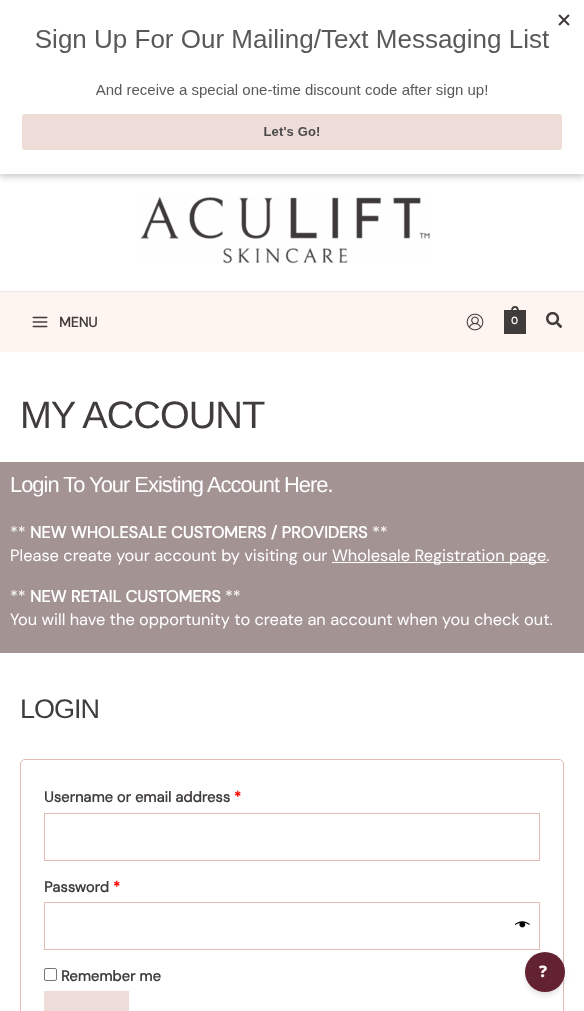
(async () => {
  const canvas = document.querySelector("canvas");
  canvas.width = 584;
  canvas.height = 1011;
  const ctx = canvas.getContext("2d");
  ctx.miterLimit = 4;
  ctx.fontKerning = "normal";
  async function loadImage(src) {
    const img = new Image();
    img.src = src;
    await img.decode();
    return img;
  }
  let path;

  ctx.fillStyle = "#ffffff";
  ctx.fillRect(0, 0, 584, 1011);
  ctx.fillStyle = "rgba(0, 0, 0, 0.2)";
  ctx.filter = "blur(3px)";
  ctx.beginPath();
  ctx.rect(0, 3, 584, 174);
  ctx.fill();
  ctx.filter = "none";
  ctx.fillStyle = "#ffffff";
  ctx.fillRect(0, 0, 584, 174);
  ctx.drawImage(await loadImage("img/1.png"), 22, 14, 548, 136);
  ctx.fillStyle = "#eaeaea";
  ctx.fillRect(0, 291, 584, 1);
  ctx.drawImage(await loadImage("img/2.png"), 140, 196, 290, 68);
  ctx.fillStyle = "#fff5f0";
  ctx.fillRect(0, 292, 584, 60);
  ctx.drawImage(await loadImage("img/3.png"), 32, 316, 16, 12);
  ctx.drawImage(await loadImage("img/4.png"), 466, 313, 18, 18);
  ctx.fillStyle = "#403c3c";
  ctx.fillRect(504, 310, 22, 24);
  path = new Path2D("M515 306C519.5 306 519 311 519 314H511C511 311 510.5 306 515 306ZM515 308C517.5 308 517 312.5 517 314H513C513 312.5 512 308 515 308Z");
  ctx.fill(path, "evenodd");
  ctx.drawImage(await loadImage("img/5.png"), 546, 311, 16, 17);
  ctx.fillStyle = "#a49393";
  ctx.fillRect(0, 462, 584, 191);
  ctx.fillStyle = "#ffffff";
  ctx.fillRect(332, 562, 215, 1);
  ctx.beginPath();
  ctx.roundRect(20.5, 759.5, 543, 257, 4.5);
  ctx.strokeStyle = "#e3bbb1";
  ctx.stroke();
  ctx.strokeRect(44.5, 813.5, 495, 47);
  ctx.strokeRect(44.5, 902.5, 495, 47);
  ctx.drawImage(await loadImage("img/6.png"), 515, 921, 15, 7);
  ctx.beginPath();
  ctx.roundRect(44.5, 968.5, 12, 12, 1.5);
  ctx.strokeStyle = "#767676";
  ctx.stroke();
  ctx.fillStyle = "#eedcd8";
  ctx.fillRect(44, 991, 85, 20);
  ctx.fillStyle = "rgba(0, 0, 0, 0.06)";
  ctx.filter = "blur(2px)";
  ctx.beginPath();
  ctx.roundRect(526, 955, 38, 38, 19);
  ctx.fill();
  ctx.filter = "none";
  ctx.fillStyle = "rgba(0, 0, 0, 0.1)";
  ctx.filter = "blur(3px)";
  ctx.beginPath();
  ctx.roundRect(526, 957, 38, 38, 19);
  ctx.fill();
  ctx.filter = "none";
  ctx.fillStyle = "#622232";
  ctx.beginPath();
  ctx.arc(545, 972, 20, 0, Math.PI * 2);
  ctx.fill();
  ctx.font = "bold 14px DM Sans";
  ctx.fillStyle = "#403c3c";
  ctx.fillText("MENU", 59, 327);
  ctx.font = "bold 10px DM Sans";
  ctx.fillStyle = "#ffffff";
  ctx.fillText("0", 511, 324);
  ctx.letterSpacing = "-1px";
  ctx.font = "38.25px Liberation Sans";
  ctx.fillStyle = "#403c3c";
  ctx.fillText("MY ACCOUNT", 20, 428);
  ctx.font = "21.9px Liberation Sans";
  ctx.fillStyle = "#ffffff";
  ctx.fillText("Login To Your Existing Account Here.", 10, 492);
  ctx.letterSpacing = "0px";
  ctx.font = "16.4px DM Sans";
  ctx.fillText("**", 10, 538);
  ctx.font = "bold 16.4px DM Sans";
  ctx.fillText("NEW WHOLESALE CUSTOMERS / PROVIDERS", 30, 538);
  ctx.font = "16.4px DM Sans";
  for (const [text, x, y] of [
    ["**", 372, 538],
    ["Please create your account by visiting our", 10, 561],
    ["Wholesale Registration page.", 332, 561],
    ["**", 10, 602],
  ]) {
    ctx.fillText(text, x, y);
  }
  ctx.font = "bold 16.4px DM Sans";
  ctx.fillText("NEW RETAIL CUSTOMERS", 30, 602);
  ctx.font = "16.4px DM Sans";
  ctx.fillText("**", 225, 602);
  ctx.fillText("You will have the opportunity to create an account when you check out.", 10, 625);
  ctx.letterSpacing = "-1px";
  ctx.font = "27px Liberation Sans";
  ctx.fillStyle = "#403c3c";
  ctx.fillText("LOGIN", 20, 718);
  ctx.letterSpacing = "0px";
  ctx.font = "bold 14.75px DM Sans";
  ctx.fillText("Username or email address", 44, 802);
  ctx.fillStyle = "#ff0000";
  ctx.fillText("*", 234, 802);
  ctx.fillStyle = "#403c3c";
  ctx.fillText("Password", 44, 892);
  ctx.fillStyle = "#ff0000";
  ctx.fillText("*", 113, 892);
  ctx.fillStyle = "#403c3c";
  ctx.fillText("Remember me", 61, 981);
  ctx.font = "900 16px Noto Sans";
  ctx.fillStyle = "#fff5f0";
  ctx.fillText("?", 539, 977);
})();
